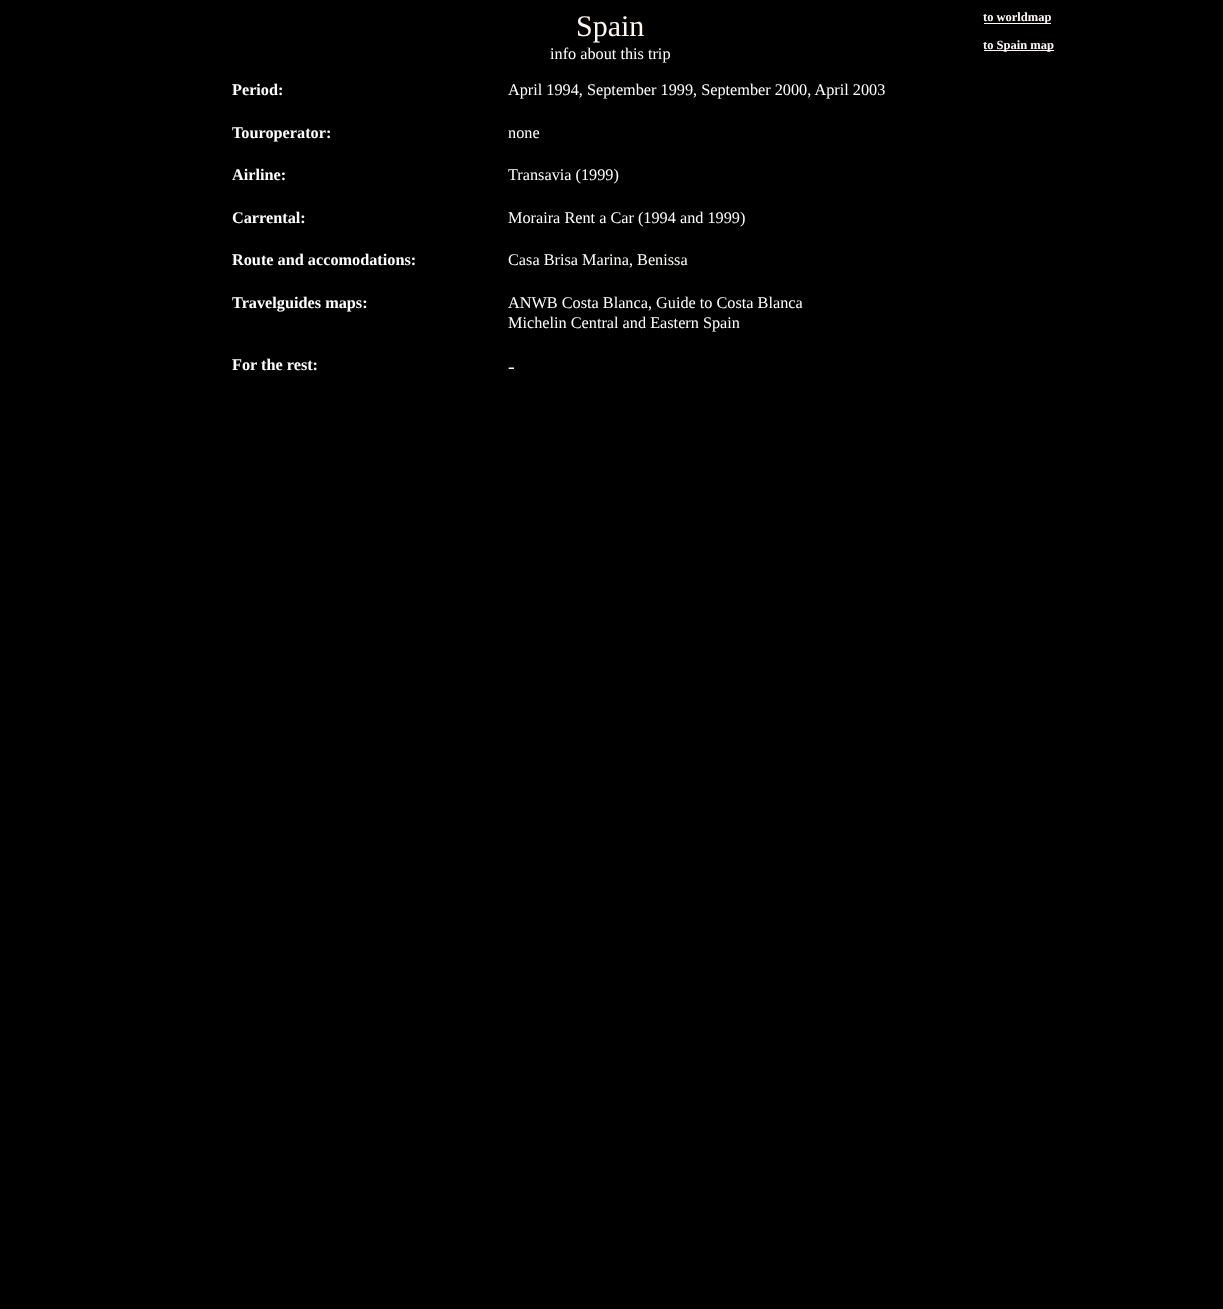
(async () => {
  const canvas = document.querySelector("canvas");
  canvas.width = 1223;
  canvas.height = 1309;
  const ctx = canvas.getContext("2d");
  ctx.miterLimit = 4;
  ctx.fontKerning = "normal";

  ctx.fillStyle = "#000000";
  ctx.fillRect(0, 0, 1223, 1309);
  ctx.fillStyle = "#fff9f9";
  ctx.fillRect(984, 23, 67, 1);
  ctx.fillRect(984, 50, 70, 1);
  ctx.font = "30px Liberation Serif";
  ctx.fillStyle = "#fff7f1";
  ctx.fillText("Spain", 576, 36);
  ctx.font = "16.25px Liberation Serif";
  ctx.fillStyle = "#fefeff";
  ctx.fillText("info about this trip", 550, 59);
  ctx.font = "bold 12.5px Liberation Serif";
  ctx.fillStyle = "#fff9f9";
  ctx.fillText("to worldmap", 983, 21);
  ctx.fillText("to Spain map", 983, 49);
  ctx.font = "bold 16.25px Liberation Serif";
  ctx.fillStyle = "#fefeff";
  ctx.fillText("Period:", 232, 95);
  ctx.font = "16.25px Liberation Serif";
  ctx.fillText("April 1994, September 1999, September 2000, April 2003", 508, 95);
  ctx.font = "bold 16.25px Liberation Serif";
  ctx.fillText("Touroperator:", 232, 138);
  ctx.font = "16.25px Liberation Serif";
  ctx.fillText("none", 508, 138);
  ctx.font = "bold 16.25px Liberation Serif";
  ctx.fillText("Airline:", 232, 180);
  ctx.font = "16.25px Liberation Serif";
  ctx.fillText("Transavia (1999)", 508, 180);
  ctx.font = "bold 16.25px Liberation Serif";
  ctx.fillText("Carrental:", 232, 223);
  ctx.font = "16.25px Liberation Serif";
  ctx.fillText("Moraira Rent a Car (1994 and 1999)", 508, 223);
  ctx.font = "bold 16.25px Liberation Serif";
  ctx.fillText("Route and accomodations:", 232, 265);
  ctx.font = "16.25px Liberation Serif";
  ctx.fillStyle = "#fcfff9";
  ctx.fillText("Casa Brisa Marina, Benissa", 508, 265);
  ctx.font = "bold 16.25px Liberation Serif";
  ctx.fillStyle = "#fefeff";
  ctx.fillText("Travelguides maps:", 232, 308);
  ctx.font = "16.25px Liberation Serif";
  ctx.fillText("ANWB Costa Blanca, Guide to Costa Blanca", 508, 308);
  ctx.fillText("Michelin Central and Eastern Spain", 508, 328);
  ctx.font = "bold 16.25px Liberation Serif";
  ctx.fillText("For the rest:", 232, 370);
  ctx.font = "20px Liberation Serif";
  ctx.fillStyle = "#fcfff9";
  ctx.fillText("-", 508, 373);
})();
